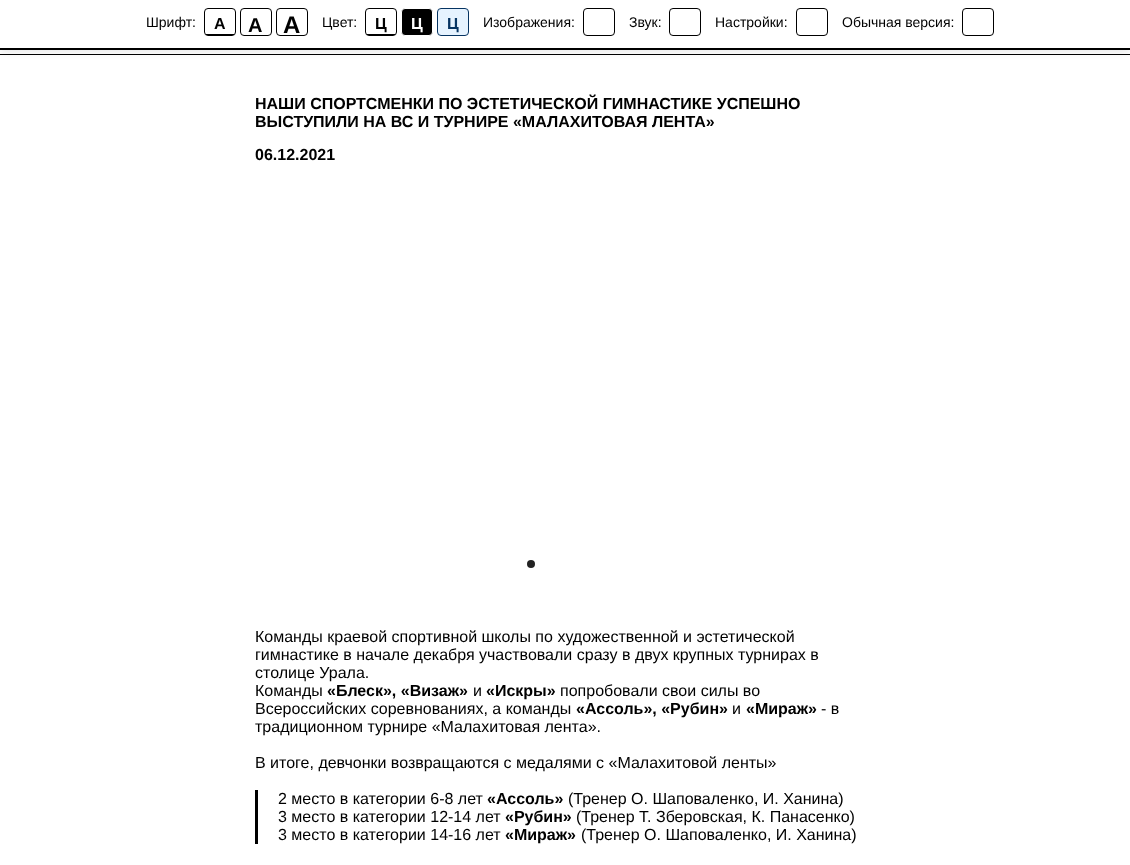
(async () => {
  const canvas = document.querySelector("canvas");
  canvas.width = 1130;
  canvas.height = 865;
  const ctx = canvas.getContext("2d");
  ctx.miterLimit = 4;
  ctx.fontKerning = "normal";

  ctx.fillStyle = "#ffffff";
  ctx.fillRect(0, 0, 1130, 865);
  ctx.fillStyle = "#000000";
  ctx.fillRect(0, 54, 1130, 1);
  ctx.fillStyle = "rgba(0, 0, 0, 0.1)";
  ctx.filter = "blur(4px)";
  ctx.beginPath();
  ctx.rect(0, 2, 1130, 50);
  ctx.fill();
  ctx.filter = "none";
  ctx.fillStyle = "#ffffff";
  ctx.fillRect(0, 0, 1130, 48);
  ctx.fillStyle = "#000000";
  ctx.fillRect(0, 48, 1130, 2);
  ctx.beginPath();
  ctx.roundRect(204.5, 8.5, 31, 27, 3.5);
  ctx.strokeStyle = "#000000";
  ctx.stroke();
  ctx.fillRect(206, 34, 28, 1);
  ctx.beginPath();
  ctx.roundRect(240.5, 8.5, 31, 27, 3.5);
  ctx.stroke();
  ctx.beginPath();
  ctx.roundRect(276.5, 8.5, 31, 27, 3.5);
  ctx.stroke();
  ctx.beginPath();
  ctx.roundRect(365.5, 8.5, 31, 27, 3.5);
  ctx.stroke();
  ctx.fillRect(367, 34, 28, 1);
  ctx.beginPath();
  ctx.roundRect(401.5, 8.5, 31, 27, 3.5);
  ctx.fill();
  ctx.strokeStyle = "#ffffff";
  ctx.stroke();
  ctx.fillStyle = "#e6f3ff";
  ctx.beginPath();
  ctx.roundRect(437.5, 8.5, 31, 27, 3.5);
  ctx.fill();
  ctx.strokeStyle = "#063462";
  ctx.stroke();
  ctx.beginPath();
  ctx.roundRect(583.5, 8.5, 31, 27, 3.5);
  ctx.strokeStyle = "#000000";
  ctx.stroke();
  ctx.beginPath();
  ctx.roundRect(669.5, 8.5, 31, 27, 3.5);
  ctx.stroke();
  ctx.beginPath();
  ctx.roundRect(796.5, 8.5, 31, 27, 3.5);
  ctx.stroke();
  ctx.beginPath();
  ctx.roundRect(962.5, 8.5, 31, 27, 3.5);
  ctx.stroke();
  ctx.fillStyle = "#222222";
  ctx.beginPath();
  ctx.arc(531, 564, 4, 0, Math.PI * 2);
  ctx.fill();
  ctx.fillStyle = "#000000";
  ctx.fillRect(255, 790, 3, 54);
  ctx.font = "14px Liberation Sans";
  ctx.fillText("Шрифт:", 146, 27);
  ctx.font = "bold 16px Liberation Sans";
  ctx.fillText("A", 214, 29);
  ctx.font = "bold 20px Liberation Sans";
  ctx.fillText("A", 248, 32);
  ctx.font = "bold 24px Liberation Sans";
  ctx.fillText("A", 283, 33);
  ctx.font = "14px Liberation Sans";
  ctx.fillText("Цвет:", 322, 27);
  ctx.font = "bold 16px Liberation Sans";
  ctx.fillText("Ц", 375, 29);
  ctx.fillStyle = "#ffffff";
  ctx.fillText("Ц", 411, 29);
  ctx.fillStyle = "#063462";
  ctx.fillText("Ц", 447, 29);
  ctx.font = "14px Liberation Sans";
  ctx.fillStyle = "#000000";
  for (const [text, x, y] of [
    ["Изображения:", 483, 27],
    ["Звук:", 629, 27],
    ["Настройки:", 715, 27],
    ["Обычная версия:", 842, 27],
  ]) {
    ctx.fillText(text, x, y);
  }
  ctx.font = "bold 16px Liberation Sans";
  for (const [text, x, y] of [
    ["НАШИ СПОРТСМЕНКИ ПО ЭСТЕТИЧЕСКОЙ ГИМНАСТИКЕ УСПЕШНО", 255, 109],
    ["ВЫСТУПИЛИ НА ВС И ТУРНИРЕ «МАЛАХИТОВАЯ ЛЕНТА»", 255, 127],
    ["06.12.2021", 255, 160],
  ]) {
    ctx.fillText(text, x, y);
  }
  ctx.font = "16px Liberation Sans";
  for (const [text, x, y] of [
    ["Команды краевой спортивной школы по художественной и эстетической", 255, 642],
    ["гимнастике в начале декабря участвовали сразу в двух крупных турнирах в", 255, 660],
    ["столице Урала.", 255, 678],
    ["Команды", 255, 696],
  ]) {
    ctx.fillText(text, x, y);
  }
  ctx.font = "bold 16px Liberation Sans";
  ctx.fillText("«Блеск», «Визаж»", 327, 696);
  ctx.font = "16px Liberation Sans";
  ctx.fillText("и", 473, 696);
  ctx.font = "bold 16px Liberation Sans";
  ctx.fillText("«Искры»", 486, 696);
  ctx.font = "16px Liberation Sans";
  ctx.fillText("попробовали свои силы во", 560, 696);
  ctx.fillText("Всероссийских соревнованиях, а команды", 255, 714);
  ctx.font = "bold 16px Liberation Sans";
  ctx.fillText("«Ассоль», «Рубин»", 576, 714);
  ctx.font = "16px Liberation Sans";
  ctx.fillText("и", 732, 714);
  ctx.font = "bold 16px Liberation Sans";
  ctx.fillText("«Мираж»", 746, 714);
  ctx.font = "16px Liberation Sans";
  for (const [text, x, y] of [
    ["- в", 821, 714],
    ["традиционном турнире «Малахитовая лента».", 255, 732],
    ["В итоге, девчонки возвращаются с медалями с «Малахитовой ленты»", 255, 768],
    ["2 место в категории 6-8 лет", 278, 804],
  ]) {
    ctx.fillText(text, x, y);
  }
  ctx.font = "bold 16px Liberation Sans";
  ctx.fillText("«Ассоль»", 487, 804);
  ctx.font = "16px Liberation Sans";
  ctx.fillText("(Тренер О. Шаповаленко, И. Ханина)", 568, 804);
  ctx.fillText("3 место в категории 12-14 лет", 278, 822);
  ctx.font = "bold 16px Liberation Sans";
  ctx.fillText("«Рубин»", 505, 822);
  ctx.font = "16px Liberation Sans";
  ctx.fillText("(Тренер Т. Зберовская, К. Панасенко)", 576, 822);
  ctx.fillText("3 место в категории 14-16 лет", 278, 840);
  ctx.font = "bold 16px Liberation Sans";
  ctx.fillText("«Мираж»", 505, 840);
  ctx.font = "16px Liberation Sans";
  ctx.fillText("(Тренер О. Шаповаленко, И. Ханина)", 581, 840);
})();
